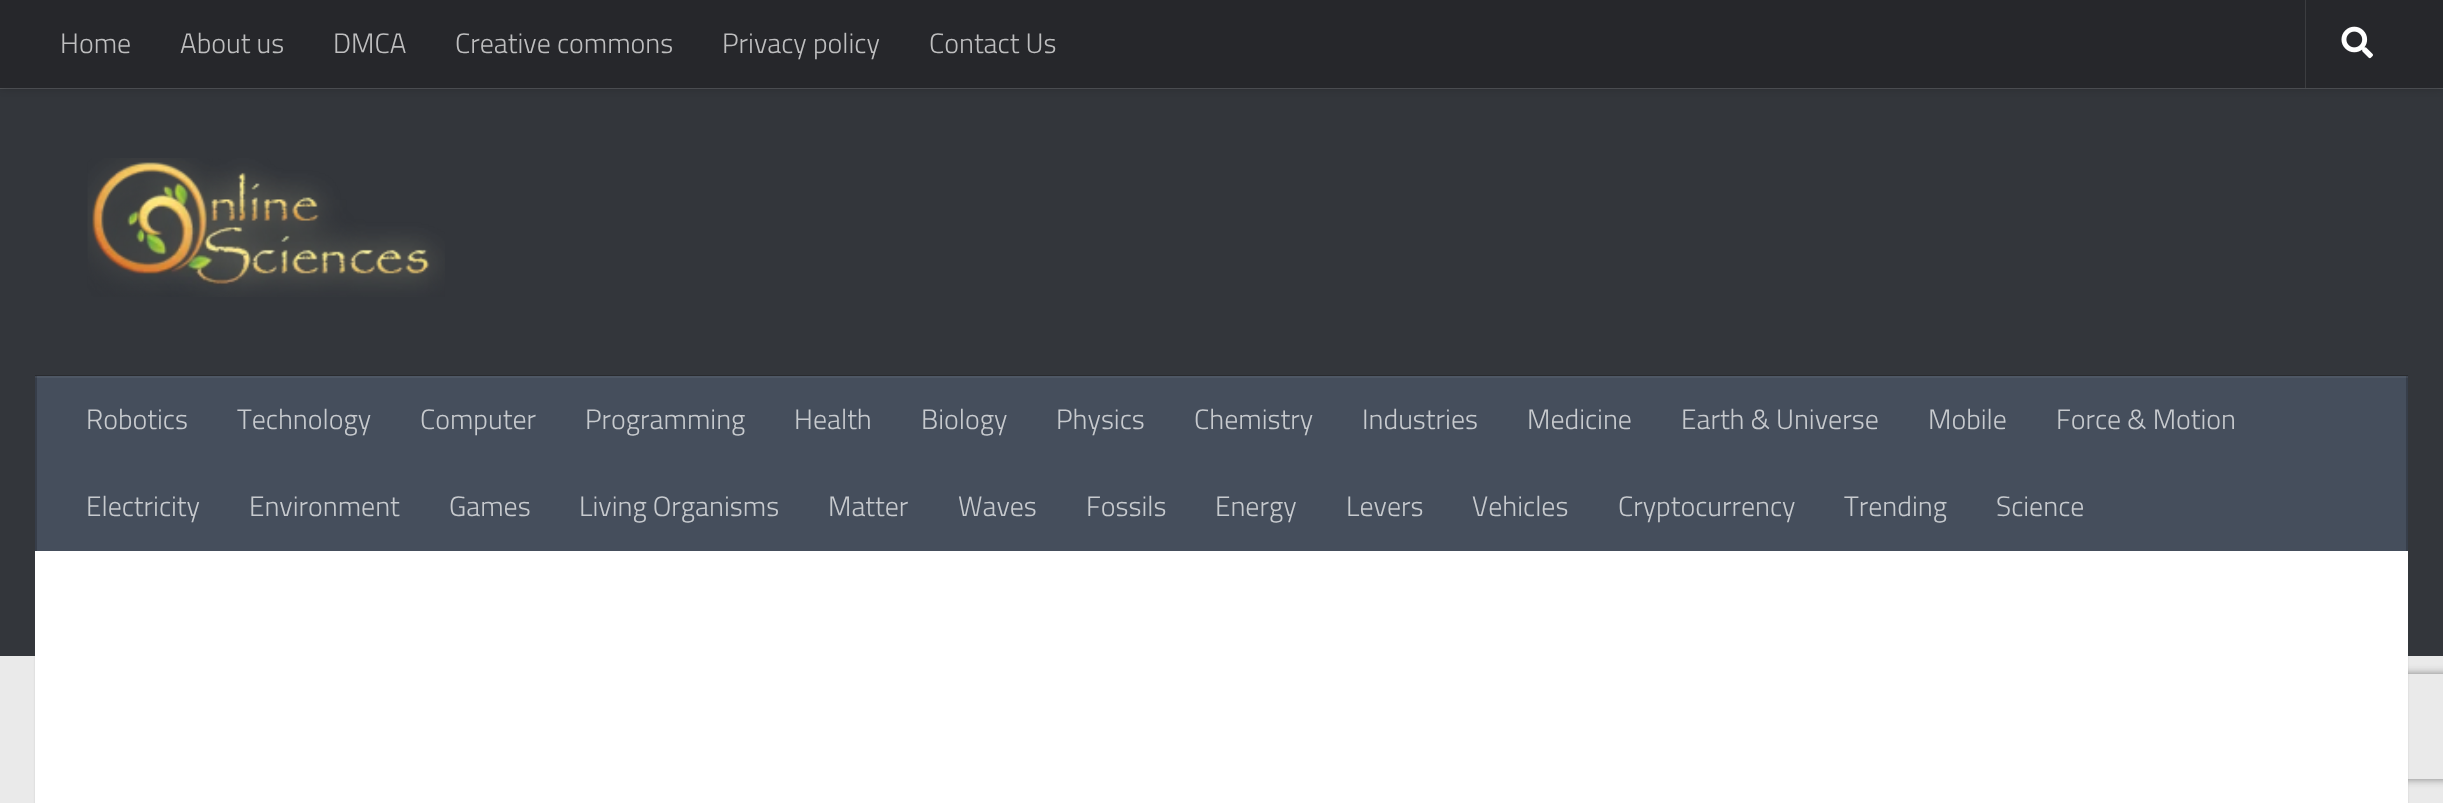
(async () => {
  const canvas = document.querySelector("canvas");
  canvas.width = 2443;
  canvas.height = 803;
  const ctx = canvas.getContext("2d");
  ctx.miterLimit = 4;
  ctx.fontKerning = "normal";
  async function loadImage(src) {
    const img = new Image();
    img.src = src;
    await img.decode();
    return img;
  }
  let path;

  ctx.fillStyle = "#eaeaea";
  ctx.fillRect(0, 0, 2443, 803);
  ctx.fillStyle = "rgba(0, 0, 0, 0.1)";
  ctx.filter = "blur(1px)";
  ctx.beginPath();
  ctx.rect(35, 553, 2373, 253);
  ctx.fill();
  ctx.filter = "none";
  ctx.fillStyle = "#33363b";
  ctx.fillRect(0, 89, 2443, 567);
  ctx.fillStyle = "#525458";
  ctx.fillRect(0, 88, 2443, 1);
  ctx.fillStyle = "rgba(0, 0, 0, 0.2)";
  ctx.filter = "blur(4.5px)";
  ctx.beginPath();
  ctx.rect(0, 0, 2443, 88);
  ctx.fill();
  ctx.filter = "none";
  ctx.fillStyle = "#26272b";
  ctx.fillRect(0, 0, 2443, 88);
  ctx.fillStyle = "#3c3d40";
  path = new Path2D("M2305 0V88H2406H2306V0Z");
  ctx.fill(path);
  ctx.drawImage(await loadImage("img/1.png"), 2341, 26, 32, 33);
  ctx.drawImage(await loadImage("img/2.png"), 87, 158, 358, 139);
  for (const [x, y, w, h, color] of [
    [35, 375, 2373, 1, "#292b2f"],
    [37, 378, 2369, 173, "#454e5c"],
    [35, 376, 2373, 2, "#4e5764"],
    [2406, 376, 2, 175, "#373e4a"],
    [2406, 376, 2, 2, "#414853"],
    [35, 376, 2, 175, "#373e4a"],
    [35, 376, 2, 2, "#414853"],
  ]) {
    ctx.fillStyle = color;
    ctx.fillRect(x, y, w, h);
  }
  ctx.save();
  path = new Path2D("M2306 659H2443V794H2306ZM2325 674H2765C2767 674 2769 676 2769 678V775C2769 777 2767 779 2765 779H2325C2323 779 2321 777 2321 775V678C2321 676 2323 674 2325 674Z");
  ctx.clip(path, "evenodd");
  ctx.fillStyle = "#808080";
  ctx.filter = "blur(4.5px)";
  ctx.beginPath();
  ctx.roundRect(2321, 674, 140, 105, 4);
  ctx.fill();
  ctx.filter = "none";
  ctx.restore();
  ctx.fillStyle = "#ffffff";
  ctx.fillRect(35, 551, 2373, 252);
  ctx.font = "300 28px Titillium";
  ctx.fillStyle = "#bebebf";
  for (const [text, x, y] of [
    ["Home", 60, 53],
    ["About us", 180, 53],
    ["DMCA", 333, 53],
    ["Creative commons", 455, 53],
    ["Privacy policy", 722, 53],
    ["Contact Us", 929, 53],
  ]) {
    ctx.fillText(text, x, y);
  }
  ctx.fillStyle = "#c7cace";
  for (const [text, x, y] of [
    ["Robotics", 86, 429],
    ["Technology", 237, 429],
    ["Computer", 420, 429],
    ["Programming", 585, 429],
    ["Health", 794, 429],
    ["Biology", 921, 429],
    ["Physics", 1056, 429],
    ["Chemistry", 1194, 429],
    ["Industries", 1362, 429],
    ["Medicine", 1527, 429],
    ["Earth & Universe", 1681, 429],
    ["Mobile", 1928, 429],
    ["Force & Motion", 2056, 429],
    ["Electricity", 86, 516],
    ["Environment", 249, 516],
    ["Games", 449, 516],
    ["Living Organisms", 579, 516],
    ["Matter", 828, 516],
    ["Waves", 958, 516],
    ["Fossils", 1086, 516],
    ["Energy", 1215, 516],
    ["Levers", 1346, 516],
    ["Vehicles", 1472, 516],
    ["Cryptocurrency", 1618, 516],
    ["Trending", 1844, 516],
    ["Science", 1996, 516],
  ]) {
    ctx.fillText(text, x, y);
  }
})();
